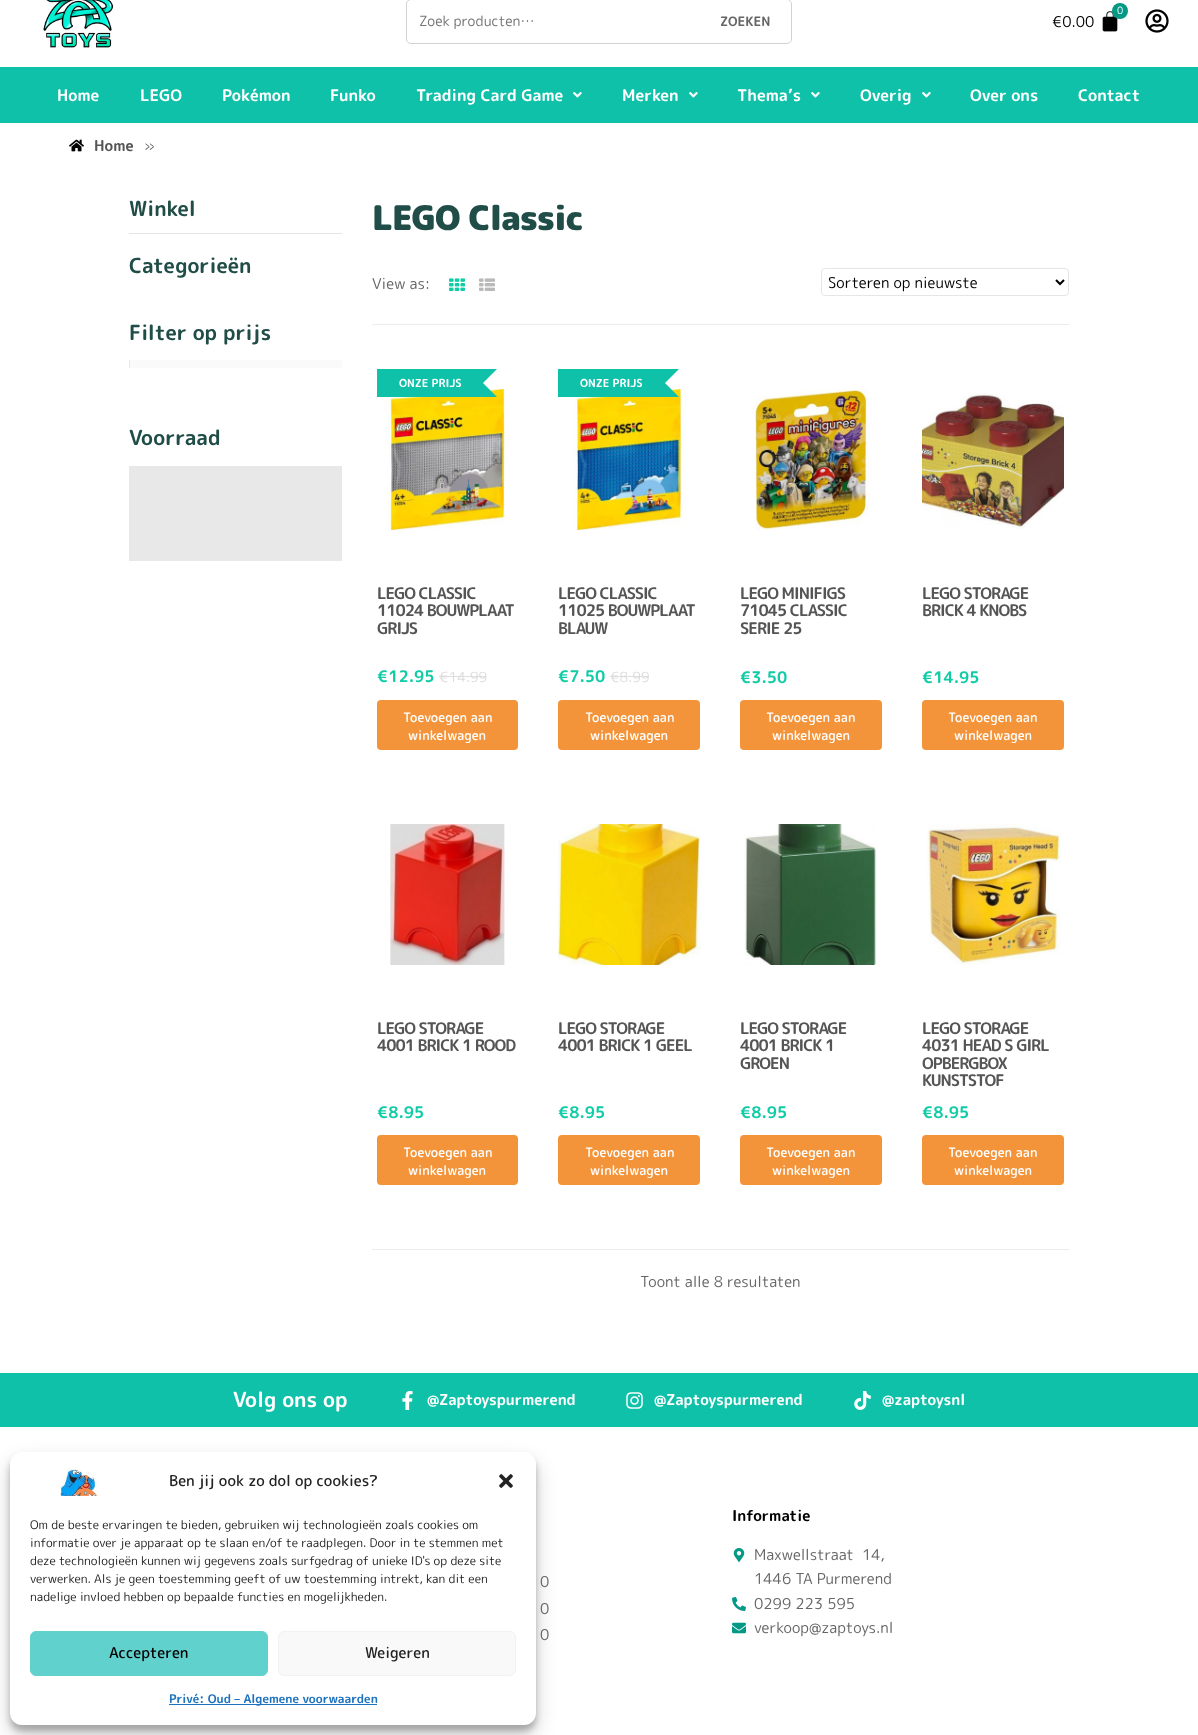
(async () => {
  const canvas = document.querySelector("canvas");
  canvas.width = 1198;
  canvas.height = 1735;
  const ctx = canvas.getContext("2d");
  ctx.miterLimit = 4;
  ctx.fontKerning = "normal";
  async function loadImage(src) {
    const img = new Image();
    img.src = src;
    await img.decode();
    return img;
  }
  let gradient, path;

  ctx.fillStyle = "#ffffff";
  ctx.fillRect(0, 0, 1198, 1735);
  ctx.drawImage(await loadImage("img/1.png"), 43, 0, 71, 48);
  ctx.beginPath();
  ctx.roundRect(406.5, -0.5, 385, 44, 4.5);
  ctx.strokeStyle = "#d2d2d2";
  ctx.stroke();
  ctx.drawImage(await loadImage("img/2.png"), 1102, 11, 16, 21);
  ctx.fillStyle = "#039985";
  ctx.beginPath();
  ctx.arc(1120, 11, 8, 0, Math.PI * 2);
  ctx.fill();
  ctx.drawImage(await loadImage("img/3.png"), 1145, 9, 24, 24);
  ctx.fillStyle = "#10c1aa";
  ctx.fillRect(0, 67, 1198, 56);
  ctx.drawImage(await loadImage("img/4.png"), 573, 92, 9, 6);
  ctx.drawImage(await loadImage("img/4.png"), 689, 92, 9, 6);
  ctx.drawImage(await loadImage("img/4.png"), 811, 92, 9, 6);
  ctx.drawImage(await loadImage("img/4.png"), 922, 92, 9, 6);
  ctx.drawImage(await loadImage("img/5.png"), 69, 139, 15, 13);
  ctx.fillStyle = "#e5e5e5";
  ctx.fillRect(129, 233, 213, 1);
  ctx.fillStyle = "#fafafa";
  ctx.fillRect(129, 360, 213, 8);
  gradient = ctx.createLinearGradient(-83, 364, 130, 364);
  gradient.addColorStop(0, "#e8e8e8");
  gradient.addColorStop(0.5, "#fbfbfb");
  gradient.addColorStop(1, "#e8e8e8");
  ctx.fillStyle = gradient;
  ctx.fillRect(129, 360, 1, 8);
  ctx.fillStyle = "#e8e8e8";
  ctx.fillRect(129, 466, 213, 95);
  ctx.drawImage(await loadImage("img/6.png"), 449, 278, 16, 13);
  ctx.drawImage(await loadImage("img/7.png"), 479, 278, 16, 13);
  ctx.beginPath();
  ctx.roundRect(821.5, 268.5, 247, 27, 3.5);
  ctx.strokeStyle = "#e6e6e6";
  ctx.stroke();
  path = new Path2D("M1056 280L1060 284L1064 280");
  ctx.strokeStyle = "#000000";
  ctx.lineWidth = 2;
  ctx.stroke(path);
  ctx.fillStyle = "#ececec";
  ctx.fillRect(372, 324, 697, 1);
  ctx.fillRect(372, 1249, 697, 1);
  ctx.fillStyle = "#10c1aa";
  path = new Path2D("M377 369H497L483 383H377Z");
  ctx.fill(path);
  ctx.drawImage(await loadImage("img/8.png"), 384, 389, 121, 141);
  path = new Path2D("M497 397H377V383H483Z");
  ctx.fill(path);
  ctx.fillStyle = "#dddddd";
  ctx.fillRect(439, 676, 47, 1);
  ctx.fillStyle = "#f3943b";
  ctx.beginPath();
  ctx.roundRect(377, 700, 141, 50, 4);
  ctx.fill();
  ctx.fillStyle = "#10c1aa";
  path = new Path2D("M558 369H679L665 383H558Z");
  ctx.fill(path);
  ctx.drawImage(await loadImage("img/9.png"), 573, 389, 113, 141);
  path = new Path2D("M679 397H558V383H665Z");
  ctx.fill(path);
  ctx.fillStyle = "#dddddd";
  ctx.fillRect(610, 676, 39, 1);
  ctx.fillStyle = "#f3943b";
  ctx.beginPath();
  ctx.roundRect(558, 700, 142, 50, 4);
  ctx.fill();
  ctx.drawImage(await loadImage("img/10.png"), 755, 389, 114, 141);
  ctx.beginPath();
  ctx.roundRect(740, 700, 142, 50, 4);
  ctx.fill();
  ctx.drawImage(await loadImage("img/11.png"), 922, 393, 142, 136);
  ctx.beginPath();
  ctx.roundRect(922, 700, 142, 50, 4);
  ctx.fill();
  ctx.drawImage(await loadImage("img/12.png"), 390, 824, 115, 141);
  ctx.beginPath();
  ctx.roundRect(377, 1135, 141, 50, 4);
  ctx.fill();
  ctx.drawImage(await loadImage("img/13.png"), 558, 824, 142, 141);
  ctx.beginPath();
  ctx.roundRect(558, 1135, 142, 50, 4);
  ctx.fill();
  ctx.drawImage(await loadImage("img/14.png"), 744, 824, 133, 141);
  ctx.beginPath();
  ctx.roundRect(740, 1135, 142, 50, 4);
  ctx.fill();
  ctx.drawImage(await loadImage("img/15.png"), 927, 824, 134, 141);
  ctx.beginPath();
  ctx.roundRect(922, 1135, 142, 50, 4);
  ctx.fill();
  ctx.fillStyle = "#10c1aa";
  ctx.fillRect(0, 1373, 1198, 54);
  ctx.drawImage(await loadImage("img/16.png"), 402, 1391, 11, 19);
  ctx.drawImage(await loadImage("img/17.png"), 626, 1392, 17, 17);
  ctx.drawImage(await loadImage("img/18.png"), 854, 1391, 17, 19);
  ctx.drawImage(await loadImage("img/19.png"), 733, 1548, 12, 14);
  ctx.drawImage(await loadImage("img/20.png"), 732, 1597, 14, 14);
  ctx.drawImage(await loadImage("img/21.png"), 732, 1622, 14, 12);
  ctx.fillStyle = "rgba(0, 0, 0, 0.23)";
  ctx.filter = "blur(3px)";
  ctx.beginPath();
  ctx.roundRect(10, 1458, 526, 273, 12);
  ctx.fill();
  ctx.filter = "none";
  ctx.fillStyle = "rgba(0, 0, 0, 0.19)";
  ctx.filter = "blur(10px)";
  ctx.beginPath();
  ctx.roundRect(10, 1462, 526, 273, 12);
  ctx.fill();
  ctx.filter = "none";
  ctx.fillStyle = "#ffffff";
  ctx.beginPath();
  ctx.roundRect(10, 1452, 526, 273, 12);
  ctx.fill();
  ctx.drawImage(await loadImage("img/22.png"), 58, 1467, 41, 29);
  ctx.drawImage(await loadImage("img/23.png"), 499, 1474, 14, 14);
  ctx.fillStyle = "#60d1cd";
  ctx.beginPath();
  ctx.roundRect(30.5, 1631.5, 237, 44, 5.5);
  ctx.fill();
  ctx.strokeStyle = "#60d1cd";
  ctx.lineWidth = 1;
  ctx.stroke();
  ctx.fillStyle = "#f9f9f9";
  ctx.beginPath();
  ctx.roundRect(278.5, 1631.5, 237, 44, 5.5);
  ctx.fill();
  ctx.strokeStyle = "#f2f2f2";
  ctx.stroke();
  ctx.fillStyle = "#1e73be";
  ctx.fillRect(169, 1704, 208, 1);
  ctx.font = "14px 'Rounded Mplus 1c'";
  ctx.fillStyle = "#757575";
  ctx.fillText("Zoek producten…", 419, 26);
  ctx.font = "bold 13px 'Rounded Mplus 1c Bold'";
  ctx.fillStyle = "#666666";
  ctx.fillText("ZOEKEN", 720, 26);
  ctx.font = "10px 'Rounded Mplus 1c'";
  ctx.fillStyle = "#ffffff";
  ctx.fillText("0", 1117, 14);
  ctx.font = "15px 'Rounded Mplus 1c'";
  ctx.fillStyle = "#000000";
  ctx.fillText("€0.00", 1052, 27);
  ctx.font = "bold 16px 'Rounded Mplus 1c Bold'";
  ctx.fillStyle = "#ffffff";
  for (const [text, x, y] of [
    ["Home", 57, 101],
    ["LEGO", 140, 101],
    ["Pokémon", 222, 101],
    ["Funko", 330, 101],
    ["Trading Card Game", 416, 101],
    ["Merken", 622, 101],
    ["Thema’s", 737, 101],
    ["Overig", 860, 101],
    ["Over ons", 970, 101],
    ["Contact", 1078, 101],
  ]) {
    ctx.fillText(text, x, y);
  }
  ctx.font = "bold 15px 'Rounded Mplus 1c Bold'";
  ctx.fillStyle = "#555555";
  ctx.fillText("Home", 94, 151);
  ctx.font = "15px 'Rounded Mplus 1c'";
  ctx.fillStyle = "#666666";
  ctx.fillText("»", 144, 151);
  ctx.font = "bold 20.75px 'Rounded Mplus 1c Bold'";
  ctx.fillStyle = "#204d47";
  for (const [text, x, y] of [
    ["Winkel", 129, 216],
    ["Categorieën", 129, 273],
    ["Filter op prijs", 129, 340],
    ["Voorraad", 129, 445],
  ]) {
    ctx.fillText(text, x, y);
  }
  ctx.letterSpacing = "-1px";
  ctx.font = "900 33.75px 'Rounded Mplus 1c'";
  ctx.fillText("LEGO Classic", 372, 230);
  ctx.letterSpacing = "0px";
  ctx.font = "15px 'Rounded Mplus 1c'";
  ctx.fillStyle = "#666666";
  ctx.fillText("View as:", 372, 289);
  ctx.fillStyle = "#000000";
  ctx.fillText("Sorteren op nieuwste", 828, 288);
  ctx.font = "bold 11px 'Rounded Mplus 1c Bold'";
  ctx.fillStyle = "#ffffff";
  ctx.fillText("ONZE PRIJS", 399, 387);
  ctx.letterSpacing = "-1px";
  ctx.font = "bold 16px 'Rounded Mplus 1c Bold'";
  ctx.fillStyle = "#555555";
  for (const [text, x, y] of [
    ["LEGO CLASSIC", 377, 599],
    ["11024 BOUWPLAAT", 377, 616],
    ["GRIJS", 377, 634],
  ]) {
    ctx.fillText(text, x, y);
  }
  ctx.letterSpacing = "0px";
  ctx.fillStyle = "#12cca7";
  ctx.fillText("€12.95", 377, 682);
  ctx.font = "14px 'Rounded Mplus 1c'";
  ctx.fillStyle = "#dddddd";
  ctx.fillText("€14.99", 439, 682);
  ctx.font = "500 13px 'Rounded Mplus 1c'";
  ctx.fillStyle = "#ffffff";
  ctx.fillText("Toevoegen aan", 403, 722);
  ctx.fillText("winkelwagen", 408, 740);
  ctx.font = "bold 11px 'Rounded Mplus 1c Bold'";
  ctx.fillText("ONZE PRIJS", 580, 387);
  ctx.letterSpacing = "-1px";
  ctx.font = "bold 16px 'Rounded Mplus 1c Bold'";
  ctx.fillStyle = "#555555";
  for (const [text, x, y] of [
    ["LEGO CLASSIC", 558, 599],
    ["11025 BOUWPLAAT", 558, 616],
    ["BLAUW", 558, 634],
  ]) {
    ctx.fillText(text, x, y);
  }
  ctx.letterSpacing = "0px";
  ctx.fillStyle = "#12cca7";
  ctx.fillText("€7.50", 558, 682);
  ctx.font = "14px 'Rounded Mplus 1c'";
  ctx.fillStyle = "#dddddd";
  ctx.fillText("€8.99", 610, 682);
  ctx.font = "500 13px 'Rounded Mplus 1c'";
  ctx.fillStyle = "#ffffff";
  ctx.fillText("Toevoegen aan", 585, 722);
  ctx.fillText("winkelwagen", 590, 740);
  ctx.letterSpacing = "-1px";
  ctx.font = "bold 16px 'Rounded Mplus 1c Bold'";
  ctx.fillStyle = "#555555";
  for (const [text, x, y] of [
    ["LEGO MINIFIGS", 740, 599],
    ["71045 CLASSIC", 740, 616],
    ["SERIE 25", 740, 634],
  ]) {
    ctx.fillText(text, x, y);
  }
  ctx.letterSpacing = "0px";
  ctx.fillStyle = "#12cca7";
  ctx.fillText("€3.50", 740, 683);
  ctx.font = "500 13px 'Rounded Mplus 1c'";
  ctx.fillStyle = "#ffffff";
  ctx.fillText("Toevoegen aan", 766, 722);
  ctx.fillText("winkelwagen", 772, 740);
  ctx.letterSpacing = "-1px";
  ctx.font = "bold 16px 'Rounded Mplus 1c Bold'";
  ctx.fillStyle = "#555555";
  ctx.fillText("LEGO STORAGE", 922, 599);
  ctx.fillText("BRICK 4 KNOBS", 922, 616);
  ctx.letterSpacing = "0px";
  ctx.fillStyle = "#12cca7";
  ctx.fillText("€14.95", 922, 683);
  ctx.font = "500 13px 'Rounded Mplus 1c'";
  ctx.fillStyle = "#ffffff";
  ctx.fillText("Toevoegen aan", 948, 722);
  ctx.fillText("winkelwagen", 954, 740);
  ctx.letterSpacing = "-1px";
  ctx.font = "bold 16px 'Rounded Mplus 1c Bold'";
  ctx.fillStyle = "#555555";
  ctx.fillText("LEGO STORAGE", 377, 1034);
  ctx.fillText("4001 BRICK 1 ROOD", 377, 1051);
  ctx.letterSpacing = "0px";
  ctx.fillStyle = "#12cca7";
  ctx.fillText("€8.95", 377, 1118);
  ctx.font = "500 13px 'Rounded Mplus 1c'";
  ctx.fillStyle = "#ffffff";
  ctx.fillText("Toevoegen aan", 403, 1157);
  ctx.fillText("winkelwagen", 408, 1175);
  ctx.letterSpacing = "-1px";
  ctx.font = "bold 16px 'Rounded Mplus 1c Bold'";
  ctx.fillStyle = "#555555";
  ctx.fillText("LEGO STORAGE", 558, 1034);
  ctx.fillText("4001 BRICK 1 GEEL", 558, 1051);
  ctx.letterSpacing = "0px";
  ctx.fillStyle = "#12cca7";
  ctx.fillText("€8.95", 558, 1118);
  ctx.font = "500 13px 'Rounded Mplus 1c'";
  ctx.fillStyle = "#ffffff";
  ctx.fillText("Toevoegen aan", 585, 1157);
  ctx.fillText("winkelwagen", 590, 1175);
  ctx.letterSpacing = "-1px";
  ctx.font = "bold 16px 'Rounded Mplus 1c Bold'";
  ctx.fillStyle = "#555555";
  for (const [text, x, y] of [
    ["LEGO STORAGE", 740, 1034],
    ["4001 BRICK 1", 740, 1051],
    ["GROEN", 740, 1069],
  ]) {
    ctx.fillText(text, x, y);
  }
  ctx.letterSpacing = "0px";
  ctx.fillStyle = "#12cca7";
  ctx.fillText("€8.95", 740, 1118);
  ctx.font = "500 13px 'Rounded Mplus 1c'";
  ctx.fillStyle = "#ffffff";
  ctx.fillText("Toevoegen aan", 766, 1157);
  ctx.fillText("winkelwagen", 772, 1175);
  ctx.letterSpacing = "-1px";
  ctx.font = "bold 16px 'Rounded Mplus 1c Bold'";
  ctx.fillStyle = "#555555";
  for (const [text, x, y] of [
    ["LEGO STORAGE", 922, 1034],
    ["4031 HEAD S GIRL", 922, 1051],
    ["OPBERGBOX", 922, 1069],
    ["KUNSTSTOF", 922, 1086],
  ]) {
    ctx.fillText(text, x, y);
  }
  ctx.letterSpacing = "0px";
  ctx.fillStyle = "#12cca7";
  ctx.fillText("€8.95", 922, 1118);
  ctx.font = "500 13px 'Rounded Mplus 1c'";
  ctx.fillStyle = "#ffffff";
  ctx.fillText("Toevoegen aan", 948, 1157);
  ctx.fillText("winkelwagen", 954, 1175);
  ctx.font = "15px 'Rounded Mplus 1c'";
  ctx.fillStyle = "#666666";
  ctx.fillText("Toont alle 8 resultaten", 640, 1287);
  ctx.font = "bold 20.75px 'Rounded Mplus 1c Bold'";
  ctx.fillStyle = "#ffffff";
  ctx.fillText("Volg ons op", 233, 1407);
  ctx.font = "bold 15px 'Rounded Mplus 1c Bold'";
  for (const [text, x, y] of [
    ["@Zaptoyspurmerend", 427, 1405],
    ["@Zaptoyspurmerend", 654, 1405],
    ["@zaptoysnl", 882, 1405],
  ]) {
    ctx.fillText(text, x, y);
  }
  ctx.font = "15px 'Rounded Mplus 1c'";
  ctx.fillStyle = "#666666";
  for (const [text, x, y] of [
    ["0", 540, 1587],
    ["0", 540, 1614],
    ["0", 540, 1640],
  ]) {
    ctx.fillText(text, x, y);
  }
  ctx.font = "bold 15px 'Rounded Mplus 1c Bold'";
  ctx.fillStyle = "#000000";
  ctx.fillText("Informatie", 732, 1521);
  ctx.wordSpacing = "4px";
  ctx.font = "15px 'Rounded Mplus 1c'";
  ctx.fillStyle = "#666666";
  ctx.fillText("Maxwellstraat 14,", 754, 1560);
  ctx.wordSpacing = "0px";
  for (const [text, x, y] of [
    ["1446 TA Purmerend", 754, 1584],
    ["0299 223 595", 754, 1609],
    ["verkoop@zaptoys.nl", 754, 1633],
  ]) {
    ctx.fillText(text, x, y);
  }
  ctx.font = "500 15px 'Rounded Mplus 1c'";
  ctx.fillStyle = "#222222";
  ctx.fillText("Ben jij ook zo dol op cookies?", 169, 1486);
  ctx.font = "12px 'Rounded Mplus 1c'";
  for (const [text, x, y] of [
    ["Om de beste ervaringen te bieden, gebruiken wij technologieën zoals cookies om", 30, 1529],
    ["informatie over je apparaat op te slaan en/of te raadplegen. Door in te stemmen met", 30, 1547],
    ["deze technologieën kunnen wij gegevens zoals surfgedrag of unieke ID's op deze site", 30, 1565],
    ["verwerken. Als je geen toestemming geeft of uw toestemming intrekt, kan dit een", 30, 1583],
    ["nadelige invloed hebben op bepaalde functies en mogelijkheden.", 30, 1601],
  ]) {
    ctx.fillText(text, x, y);
  }
  ctx.font = "500 15px 'Rounded Mplus 1c'";
  ctx.fillStyle = "#000000";
  ctx.fillText("Accepteren", 109, 1658);
  ctx.fillStyle = "#222222";
  ctx.fillText("Weigeren", 365, 1658);
  ctx.font = "bold 12px 'Rounded Mplus 1c Bold'";
  ctx.fillStyle = "#1e73be";
  ctx.fillText("Privé: Oud – Algemene voorwaarden", 169, 1703);
})();
